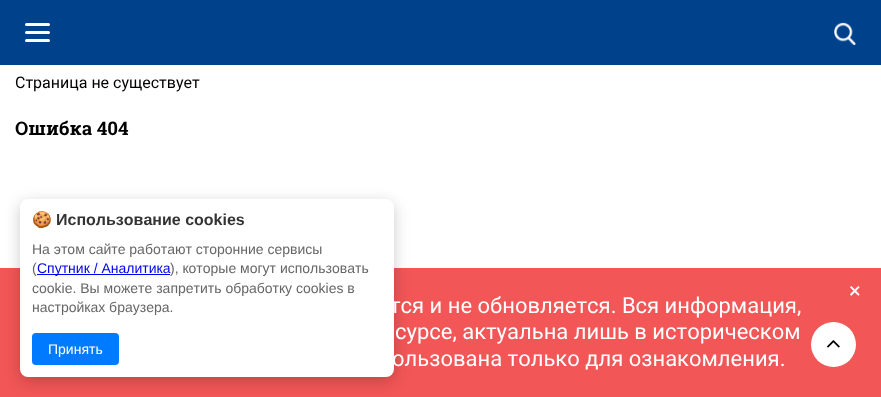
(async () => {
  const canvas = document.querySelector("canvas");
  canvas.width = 881;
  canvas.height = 397;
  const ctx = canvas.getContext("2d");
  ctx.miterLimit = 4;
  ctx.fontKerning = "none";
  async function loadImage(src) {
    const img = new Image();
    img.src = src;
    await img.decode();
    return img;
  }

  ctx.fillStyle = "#ffffff";
  ctx.fillRect(0, 0, 881, 397);
  ctx.fillStyle = "#00418b";
  ctx.fillRect(0, 0, 881, 65);
  ctx.fillStyle = "#ffffff";
  ctx.beginPath();
  ctx.roundRect(25, 23, 25, 3, 1.5);
  ctx.fill();
  ctx.beginPath();
  ctx.roundRect(25, 31, 25, 3, 1.5);
  ctx.fill();
  ctx.beginPath();
  ctx.roundRect(25, 39, 25, 3, 1.5);
  ctx.fill();
  ctx.drawImage(await loadImage("img/1.png"), 834, 22, 22, 23);
  ctx.fillStyle = "#f25656";
  ctx.fillRect(0, 268, 881, 129);
  ctx.fillStyle = "#ffffff";
  ctx.beginPath();
  ctx.arc(833.5, 344.5, 22.5, 0, Math.PI * 2);
  ctx.fill();
  ctx.drawImage(await loadImage("img/2.png"), 827, 340, 13, 8);
  ctx.fillStyle = "rgba(0, 0, 0, 0.2)";
  ctx.filter = "blur(7.5px)";
  ctx.beginPath();
  ctx.roundRect(20, 203, 374, 178, 8);
  ctx.fill();
  ctx.filter = "none";
  ctx.fillStyle = "#ffffff";
  ctx.beginPath();
  ctx.roundRect(20, 199, 374, 178, 8);
  ctx.fill();
  ctx.fillStyle = "#0000ee";
  ctx.fillRect(37, 274, 133, 1);
  ctx.fillStyle = "#007bff";
  ctx.beginPath();
  ctx.roundRect(32, 333, 87, 32, 4);
  ctx.fill();
  ctx.font = "16px Roboto";
  ctx.fillStyle = "#000000";
  ctx.fillText("Страница не существует", 15, 88);
  ctx.font = "bold 18.75px Roboto Slab";
  ctx.fillText("Ошибка 404", 15, 135);
  ctx.font = "bold 16px Noto Color Emoji";
  ctx.fillStyle = "#333333";
  ctx.fillText("🍪", 32, 225);
  ctx.font = "bold 16px Liberation Sans";
  ctx.fillText("Использование cookies", 56, 225);
  ctx.font = "14px Liberation Sans";
  ctx.fillStyle = "#666666";
  ctx.fillText("На этом сайте работают сторонние сервисы", 32, 254);
  ctx.fillText("(", 32, 273);
  ctx.fillStyle = "#0000ee";
  ctx.fillText("Спутник / Аналитика", 37, 273);
  ctx.fillStyle = "#666666";
  for (const [text, x, y] of [
    ["), которые могут использовать", 170, 273],
    ["cookie. Вы можете запретить обработку cookies в", 32, 293],
    ["настройках браузера.", 32, 312],
  ]) {
    ctx.fillText(text, x, y);
  }
  ctx.fillStyle = "#ffffff";
  ctx.fillText("Принять", 48, 354);
  ctx.font = "22px Roboto";
  for (const [text, x, y] of [
    ["×", 849, 298],
    ["тся и не обновляется. Вся информация,", 390, 313],
    ["сурсе, актуальна лишь в историческом", 395, 339],
    ["ользована только для ознакомления.", 392, 366],
  ]) {
    ctx.fillText(text, x, y);
  }
})();
